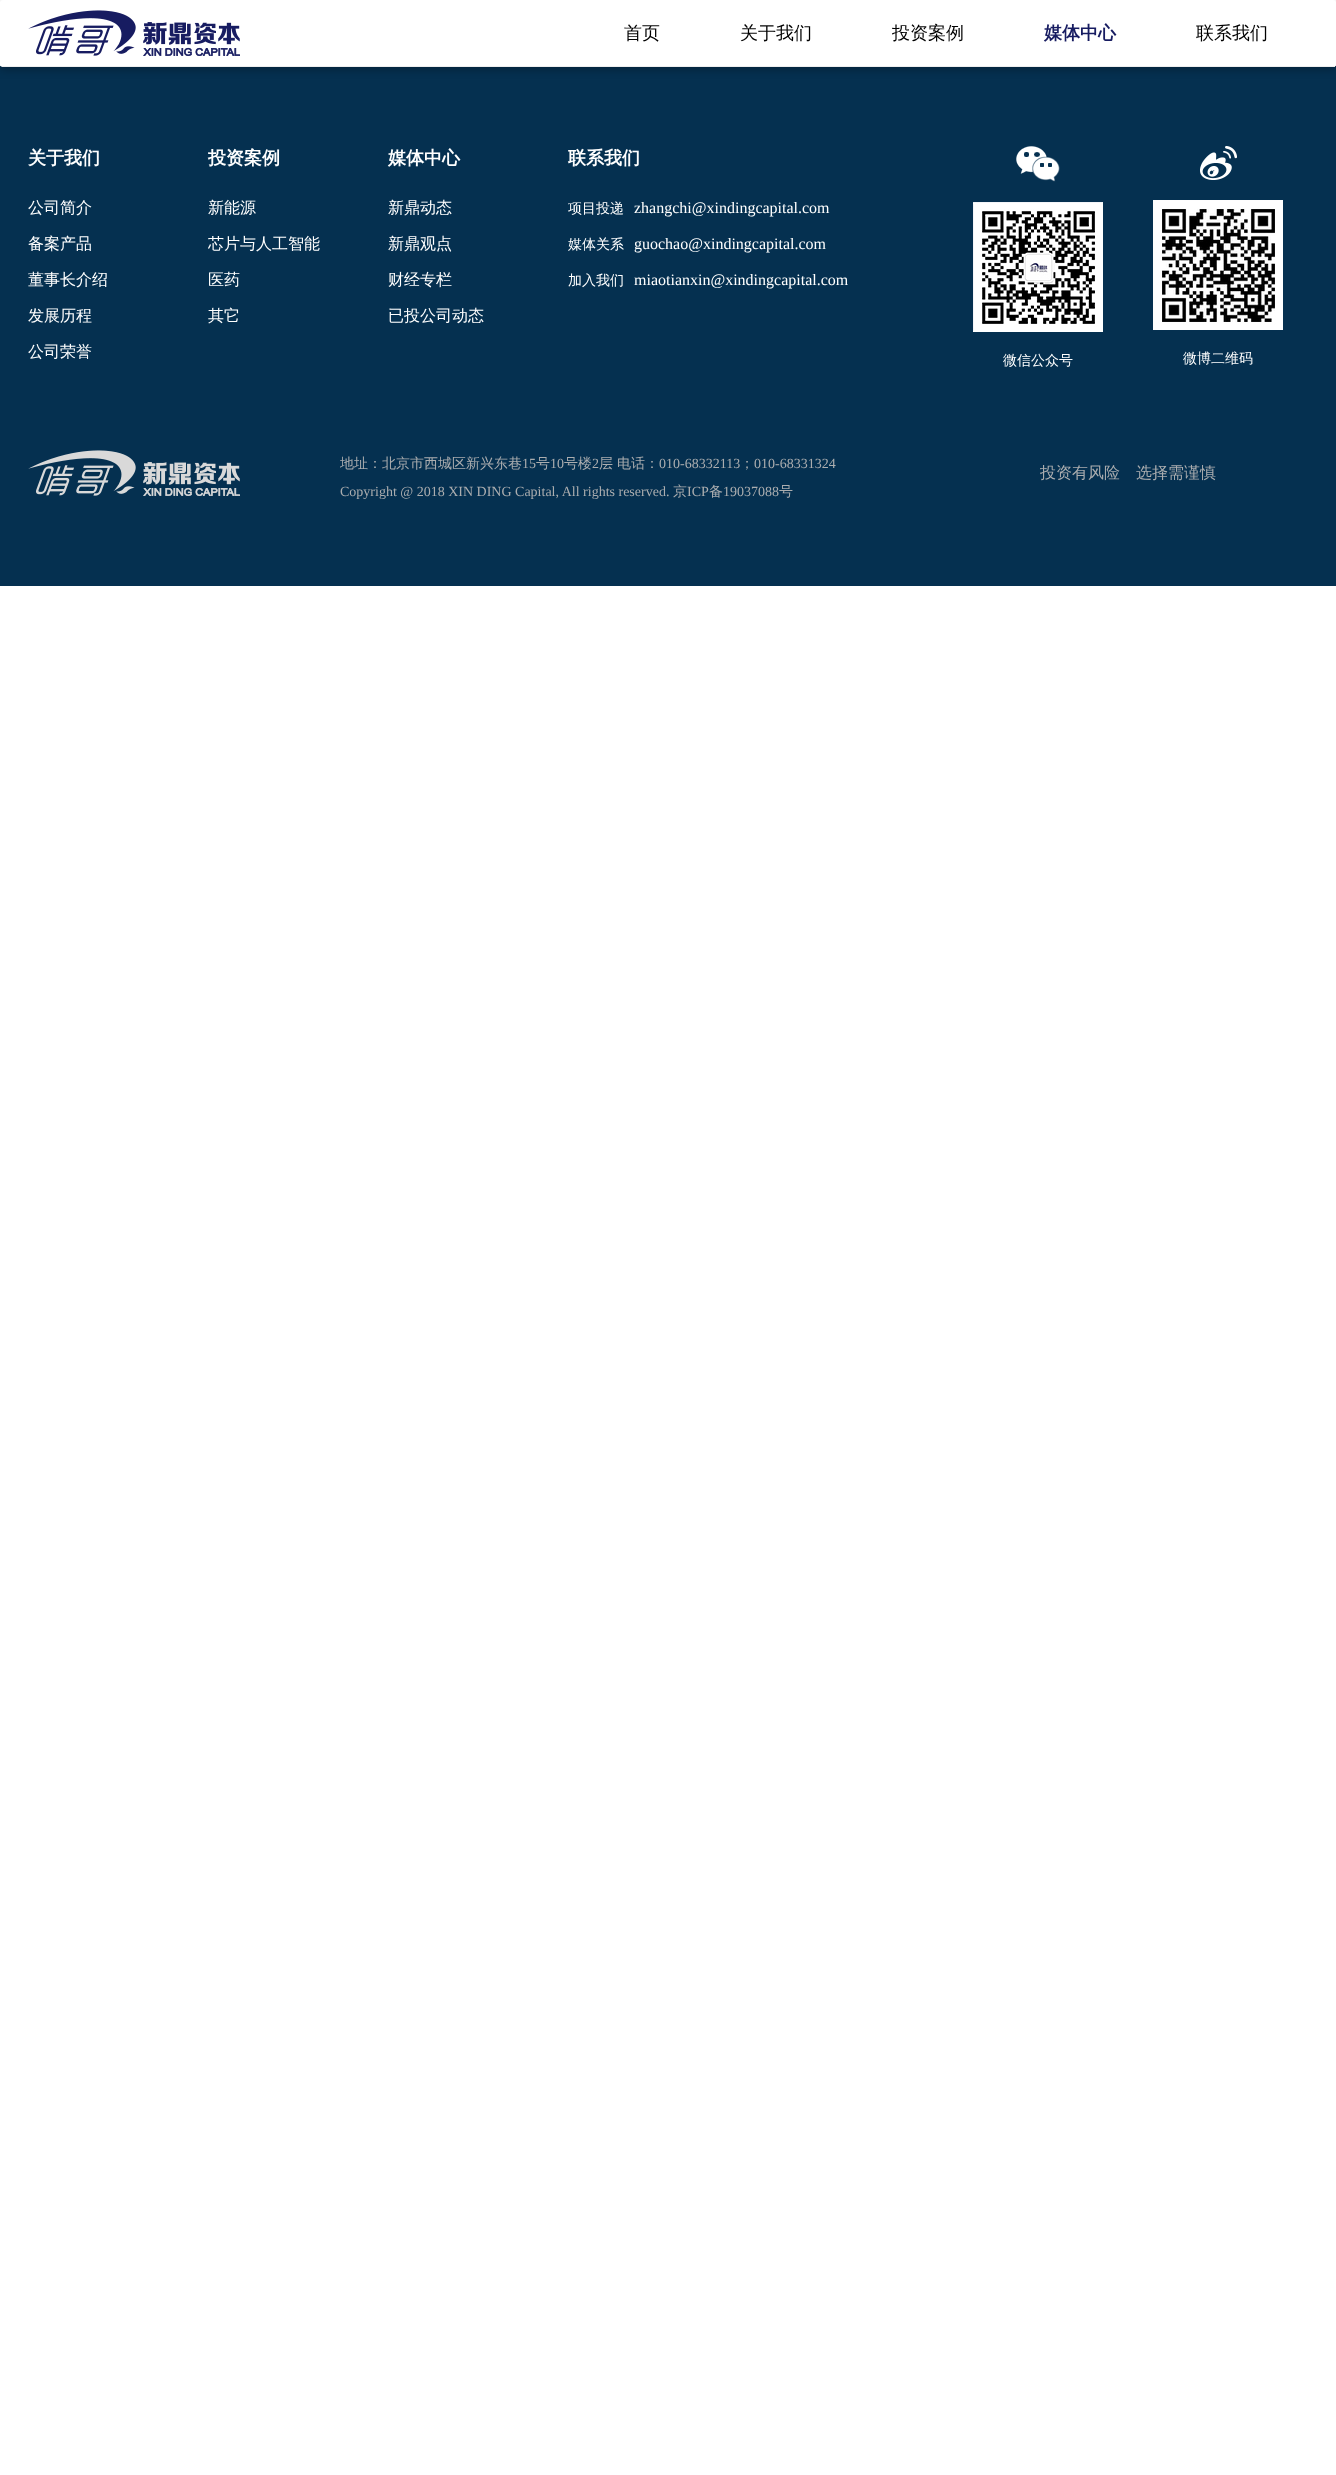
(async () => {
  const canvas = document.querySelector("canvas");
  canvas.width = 1336;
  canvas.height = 2475;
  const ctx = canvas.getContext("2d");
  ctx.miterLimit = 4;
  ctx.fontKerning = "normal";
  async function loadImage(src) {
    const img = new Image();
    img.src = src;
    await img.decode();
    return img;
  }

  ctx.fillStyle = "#ffffff";
  ctx.fillRect(0, 0, 1336, 2475);
  ctx.fillStyle = "#053050";
  ctx.fillRect(0, 66, 1336, 520);
  ctx.fillStyle = "rgba(0, 0, 0, 0.25)";
  ctx.filter = "blur(4px)";
  ctx.beginPath();
  ctx.roundRect(0, 3, 1336, 67, 3);
  ctx.fill();
  ctx.filter = "none";
  ctx.fillStyle = "#ffffff";
  ctx.beginPath();
  ctx.roundRect(0, 0, 1336, 67, 3);
  ctx.fill();
  ctx.fillStyle = "#eeeeee";
  ctx.fillRect(2, 66, 1333, 1);
  ctx.drawImage(await loadImage("img/1.png"), 28, 10, 212, 46);
  ctx.drawImage(await loadImage("img/2.png"), 1016, 146, 44, 36);
  ctx.drawImage(await loadImage("img/3.png"), 973, 202, 130, 130);
  ctx.drawImage(await loadImage("img/4.png"), 1200, 146, 37, 34);
  ctx.drawImage(await loadImage("img/5.png"), 1153, 200, 130, 130);
  ctx.drawImage(await loadImage("img/6.png"), 28, 450, 212, 46);
  ctx.font = "500 18px WenQuanYi Zen Hei";
  ctx.fillStyle = "#000000";
  for (const [text, x, y] of [
    ["首页", 624, 39],
    ["关于我们", 740, 39],
    ["投资案例", 892, 39],
  ]) {
    ctx.fillText(text, x, y);
  }
  ctx.font = "bold 18px WenQuanYi Zen Hei";
  ctx.fillStyle = "#171c61";
  ctx.fillText("媒体中心", 1044, 39);
  ctx.font = "500 18px WenQuanYi Zen Hei";
  ctx.fillStyle = "#000000";
  ctx.fillText("联系我们", 1196, 39);
  ctx.font = "bold 18px WenQuanYi Zen Hei";
  ctx.fillStyle = "#ffffff";
  ctx.fillText("关于我们", 28, 164);
  ctx.font = "500 16px WenQuanYi Zen Hei";
  for (const [text, x, y] of [
    ["公司简介", 28, 213],
    ["备案产品", 28, 249],
    ["董事长介绍", 28, 285],
    ["发展历程", 28, 321],
    ["公司荣誉", 28, 357],
  ]) {
    ctx.fillText(text, x, y);
  }
  ctx.font = "bold 18px WenQuanYi Zen Hei";
  ctx.fillText("投资案例", 208, 164);
  ctx.font = "500 16px WenQuanYi Zen Hei";
  for (const [text, x, y] of [
    ["新能源", 208, 213],
    ["芯片与人工智能", 208, 249],
    ["医药", 208, 285],
    ["其它", 208, 321],
  ]) {
    ctx.fillText(text, x, y);
  }
  ctx.font = "bold 18px WenQuanYi Zen Hei";
  ctx.fillText("媒体中心", 388, 164);
  ctx.font = "500 16px WenQuanYi Zen Hei";
  for (const [text, x, y] of [
    ["新鼎动态", 388, 213],
    ["新鼎观点", 388, 249],
    ["财经专栏", 388, 285],
    ["已投公司动态", 388, 321],
  ]) {
    ctx.fillText(text, x, y);
  }
  ctx.font = "bold 18px WenQuanYi Zen Hei";
  ctx.fillText("联系我们", 568, 164);
  ctx.font = "500 14px WenQuanYi Zen Hei";
  ctx.fillText("项目投递", 568, 213);
  ctx.font = "16px Liberation Serif";
  ctx.fillText("zhangchi@xindingcapital.com", 634, 213);
  ctx.font = "500 14px WenQuanYi Zen Hei";
  ctx.fillText("媒体关系", 568, 249);
  ctx.font = "16px Liberation Serif";
  ctx.fillText("guochao@xindingcapital.com", 634, 249);
  ctx.font = "500 14px WenQuanYi Zen Hei";
  ctx.fillText("加入我们", 568, 285);
  ctx.font = "16px Liberation Serif";
  ctx.fillText("miaotianxin@xindingcapital.com", 634, 285);
  ctx.font = "500 14px WenQuanYi Zen Hei";
  ctx.fillText("微信公众号", 1003, 365);
  ctx.fillText("微博二维码", 1183, 363);
  ctx.fillStyle = "#abadaf";
  ctx.fillText("地址：北京市西城区新兴东巷", 340, 468);
  ctx.font = "14px Liberation Serif";
  ctx.fillText("15", 522, 468);
  ctx.font = "500 14px WenQuanYi Zen Hei";
  ctx.fillText("号", 536, 468);
  ctx.font = "14px Liberation Serif";
  ctx.fillText("10", 550, 468);
  ctx.font = "500 14px WenQuanYi Zen Hei";
  ctx.fillText("号楼", 564, 468);
  ctx.font = "14px Liberation Serif";
  ctx.fillText("2", 592, 468);
  ctx.font = "500 14px WenQuanYi Zen Hei";
  ctx.fillText("层", 599, 468);
  ctx.fillText("电话：", 617, 468);
  ctx.font = "14px Liberation Serif";
  ctx.fillText("010-68332113", 659, 468);
  ctx.font = "500 14px WenQuanYi Zen Hei";
  ctx.fillText("；", 740, 468);
  ctx.font = "14px Liberation Serif";
  ctx.fillText("010-68331324", 754, 468);
  ctx.fillText("Copyright @ 2018 XIN DING Capital, All rights reserved.", 340, 496);
  ctx.font = "500 14px WenQuanYi Zen Hei";
  ctx.fillText("京", 673, 496);
  ctx.font = "14px Liberation Serif";
  ctx.fillText("ICP", 687, 496);
  ctx.font = "500 14px WenQuanYi Zen Hei";
  ctx.fillText("备", 709, 496);
  ctx.font = "14px Liberation Serif";
  ctx.fillText("19037088", 723, 496);
  ctx.font = "500 14px WenQuanYi Zen Hei";
  ctx.fillText("号", 779, 496);
  ctx.font = "500 16px WenQuanYi Zen Hei";
  ctx.fillText("投资有风险　选择需谨慎", 1040, 478);
})();
